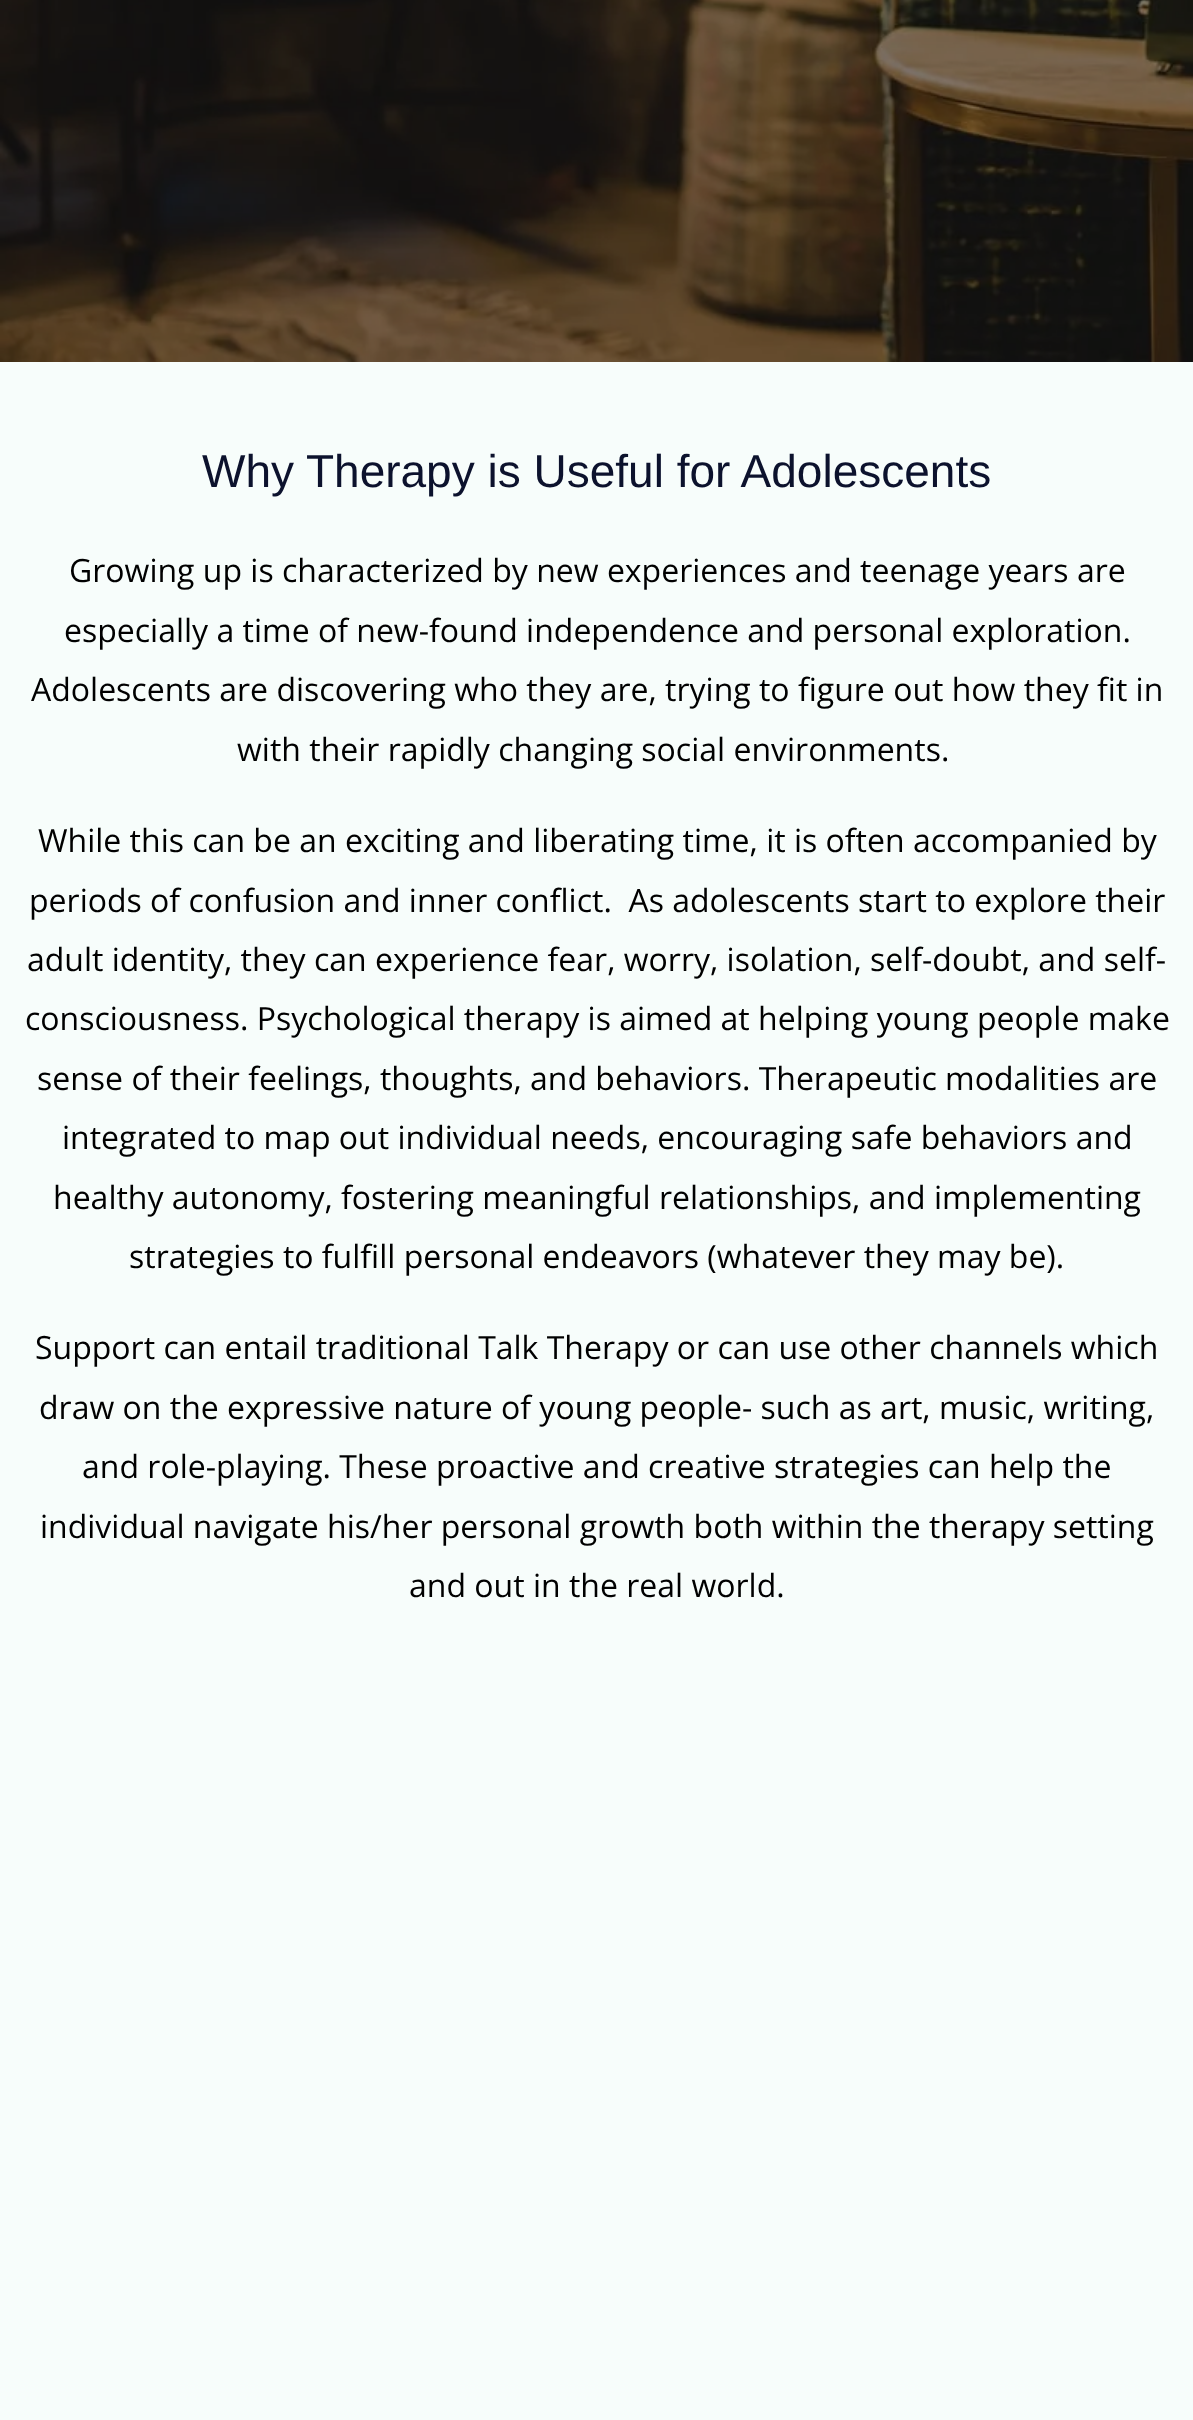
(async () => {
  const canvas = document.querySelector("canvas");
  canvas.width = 1193;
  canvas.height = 2420;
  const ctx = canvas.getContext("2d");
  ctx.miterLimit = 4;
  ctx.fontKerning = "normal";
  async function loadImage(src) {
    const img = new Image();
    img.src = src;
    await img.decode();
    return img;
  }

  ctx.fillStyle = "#f7fdfb";
  ctx.fillRect(0, 0, 1193, 2420);
  ctx.drawImage(await loadImage("img/1.png"), 0, 0, 1193, 362);
  ctx.font = "46px Liberation Sans";
  ctx.fillStyle = "#0c122d";
  ctx.fillText("Why Therapy is Useful for Adolescents", 202, 487);
  ctx.font = "32px Open Sans";
  ctx.fillStyle = "#000000";
  for (const [text, x, y] of [
    ["Growing up is characterized by new experiences and teenage years are", 69, 582],
    ["especially a time of new-found independence and personal exploration.", 64, 642],
    ["Adolescents are discovering who they are, trying to figure out how they fit in", 31, 701],
    ["with their rapidly changing social environments.", 237, 761],
    ["While this can be an exciting and liberating time, it is often accompanied by", 38, 852],
    ["periods of confusion and inner conflict.  As adolescents start to explore their", 29, 912],
    ["adult identity, they can experience fear, worry, isolation, self-doubt, and self-", 27, 971],
    ["consciousness. Psychological therapy is aimed at helping young people make", 25, 1030],
    ["sense of their feelings, thoughts, and behaviors. Therapeutic modalities are", 37, 1090],
    ["integrated to map out individual needs, encouraging safe behaviors and", 62, 1149],
    ["healthy autonomy, fostering meaningful relationships, and implementing", 53, 1209],
    ["strategies to fulfill personal endeavors (whatever they may be).", 129, 1268],
    ["Support can entail traditional Talk Therapy or can use other channels which", 35, 1359],
    ["draw on the expressive nature of young people- such as art, music, writing,", 39, 1419],
    ["and role-playing. These proactive and creative strategies can help the", 82, 1478],
    ["individual navigate his/her personal growth both within the therapy setting", 40, 1538],
    ["and out in the real world.", 409, 1597],
  ]) {
    ctx.fillText(text, x, y);
  }
})();
